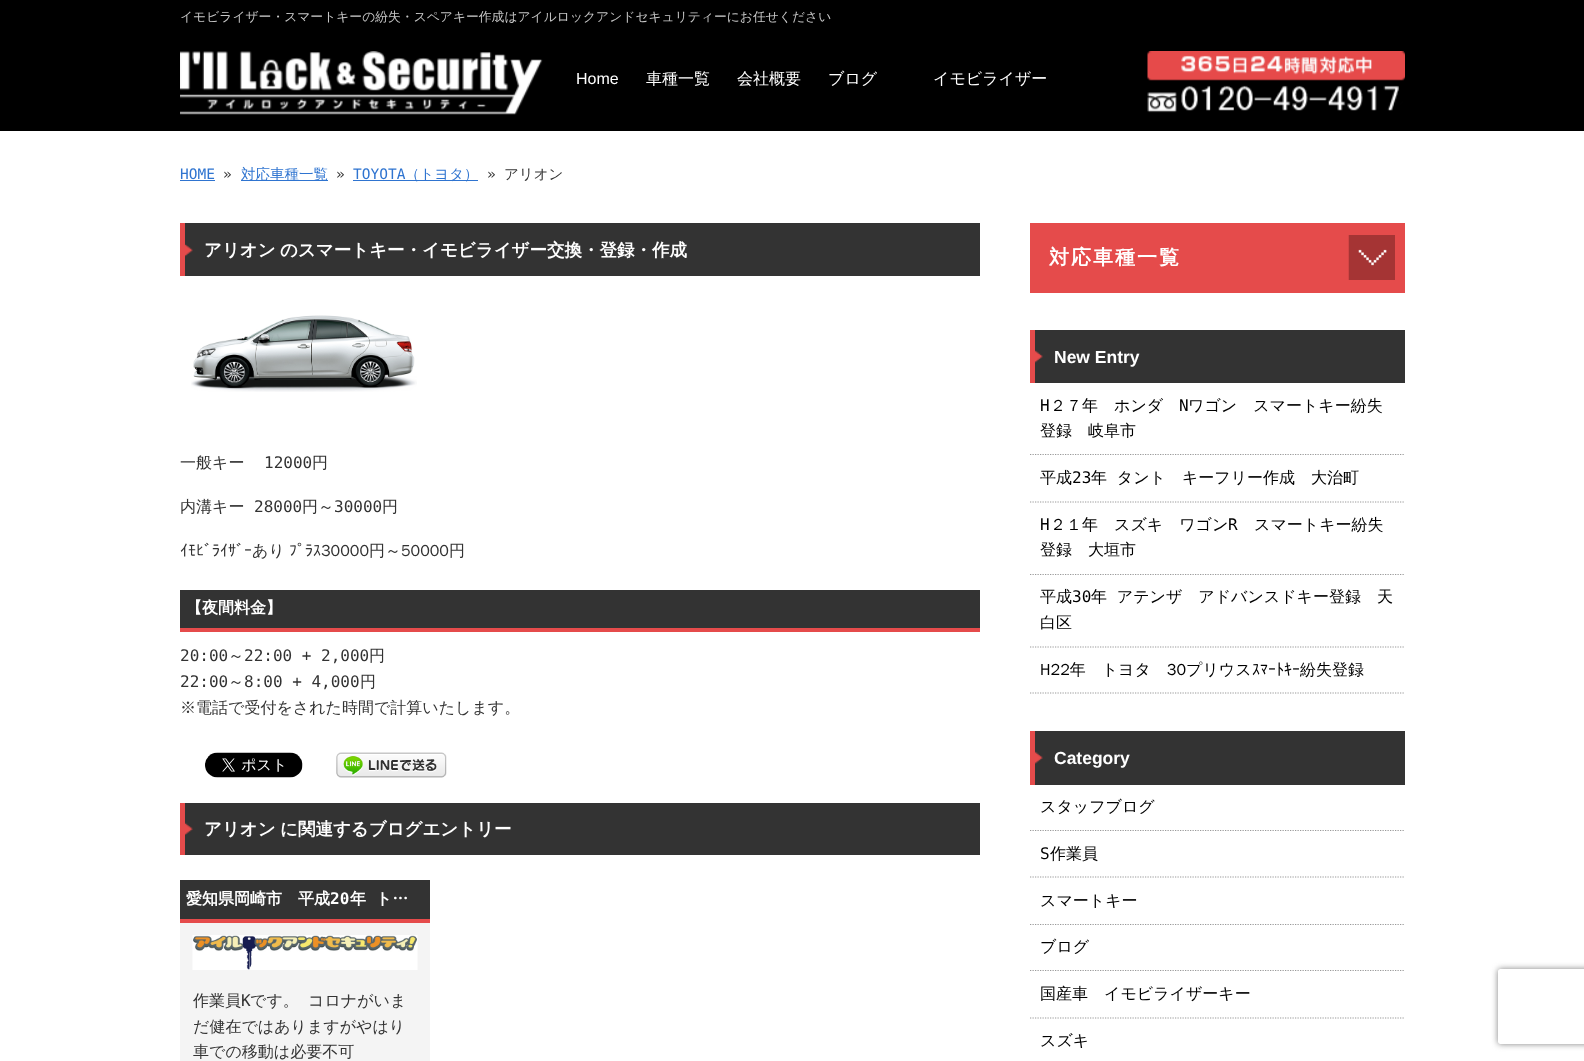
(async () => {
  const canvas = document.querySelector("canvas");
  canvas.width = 1584;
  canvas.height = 1061;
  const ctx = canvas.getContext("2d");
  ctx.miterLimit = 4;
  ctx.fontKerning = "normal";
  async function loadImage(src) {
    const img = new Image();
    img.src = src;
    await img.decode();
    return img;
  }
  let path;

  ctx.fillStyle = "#ffffff";
  ctx.fillRect(0, 0, 1584, 1061);
  ctx.fillStyle = "#000000";
  ctx.fillRect(0, 0, 1584, 131);
  ctx.drawImage(await loadImage("img/1.png"), 180, 51, 363, 64);
  ctx.drawImage(await loadImage("img/2.png"), 1147, 51, 258, 62);
  for (const [x, y, w, h, color] of [
    [180, 180, 35, 1, "#2f74d0"],
    [241, 180, 87, 1, "#2f74d0"],
    [353, 180, 125, 1, "#2f74d0"],
    [185, 223, 795, 53, "#333333"],
  ]) {
    ctx.fillStyle = color;
    ctx.fillRect(x, y, w, h);
  }
  ctx.drawImage(await loadImage("img/3.png"), 185, 243, 8, 14);
  ctx.fillStyle = "#e54b4b";
  ctx.fillRect(180, 223, 5, 53);
  ctx.drawImage(await loadImage("img/4.png"), 191, 315, 226, 77);
  ctx.fillStyle = "#333333";
  ctx.fillRect(180, 590, 800, 38);
  ctx.fillStyle = "#e54b4b";
  ctx.fillRect(180, 628, 800, 4);
  ctx.drawImage(await loadImage("img/5.png"), 205, 752, 98, 26);
  ctx.drawImage(await loadImage("img/6.png"), 336, 752, 111, 26);
  ctx.fillStyle = "#333333";
  ctx.fillRect(185, 803, 795, 52);
  ctx.drawImage(await loadImage("img/7.png"), 185, 822, 8, 13);
  for (const [x, y, w, h, color] of [
    [180, 803, 5, 52, "#e54b4b"],
    [180, 923, 250, 138, "#f4f4f4"],
    [180, 880, 250, 39, "#333333"],
    [180, 919, 250, 4, "#e54b4b"],
  ]) {
    ctx.fillStyle = color;
    ctx.fillRect(x, y, w, h);
  }
  ctx.drawImage(await loadImage("img/8.png"), 192, 935, 226, 35);
  ctx.fillRect(1030, 223, 375, 70);
  ctx.drawImage(await loadImage("img/9.png"), 1348, 235, 47, 45);
  ctx.fillStyle = "#333333";
  ctx.fillRect(1035, 330, 370, 53);
  ctx.drawImage(await loadImage("img/10.png"), 1035, 350, 8, 13);
  ctx.fillStyle = "#e54b4b";
  ctx.fillRect(1030, 330, 5, 53);
  path = new Path2D("M1030 454.5H1405");
  ctx.strokeStyle = "#999999";
  ctx.lineWidth = 1.2;
  ctx.setLineDash([1.25, 1.25]);
  ctx.stroke(path);
  path = new Path2D("M1030 502H1405");
  ctx.stroke(path);
  path = new Path2D("M1030 574.5H1405");
  ctx.stroke(path);
  path = new Path2D("M1030 647H1405");
  ctx.stroke(path);
  path = new Path2D("M1030 693H1405");
  ctx.stroke(path);
  ctx.fillStyle = "#333333";
  ctx.fillRect(1035, 731, 370, 54);
  ctx.drawImage(await loadImage("img/11.png"), 1035, 751, 8, 13);
  ctx.fillStyle = "#e54b4b";
  ctx.fillRect(1030, 731, 5, 54);
  path = new Path2D("M1030 830.5H1405");
  ctx.stroke(path);
  path = new Path2D("M1030 877H1405");
  ctx.stroke(path);
  path = new Path2D("M1030 924.5H1405");
  ctx.stroke(path);
  path = new Path2D("M1030 970.5H1405");
  ctx.stroke(path);
  path = new Path2D("M1030 1018H1405");
  ctx.stroke(path);
  ctx.save();
  path = new Path2D("M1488 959H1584V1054H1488ZM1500.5 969H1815.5C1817 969 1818 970 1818 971.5V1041.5C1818 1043 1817 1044 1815.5 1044H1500.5C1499 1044 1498 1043 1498 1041.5V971.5C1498 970 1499 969 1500.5 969Z");
  ctx.clip(path, "evenodd");
  ctx.fillStyle = "#808080";
  ctx.filter = "blur(3px)";
  ctx.beginPath();
  ctx.roundRect(1498, 969, 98, 75, 2.5);
  ctx.fill();
  ctx.filter = "none";
  ctx.restore();
  ctx.font = "500 12.8px WenQuanYi Zen Hei";
  ctx.fillStyle = "#c6c6c6";
  ctx.fillText("イモビライザー・スマートキーの紛失・スペアキー作成はアイルロックアンドセキュリティーにお任せください", 180, 21);
  ctx.font = "16px Liberation Sans";
  ctx.fillStyle = "#ffffff";
  ctx.fillText("Home", 576, 84);
  ctx.font = "500 16px WenQuanYi Zen Hei";
  for (const [text, x, y] of [
    ["車種一覧", 646, 84],
    ["会社概要", 737, 84],
    ["ブログ", 828, 84],
    ["イモビライザー", 933, 84],
  ]) {
    ctx.fillText(text, x, y);
  }
  ctx.font = "14.5px DejaVu Sans Mono";
  ctx.fillStyle = "#2f74d0";
  ctx.fillText("HOME", 180, 179);
  ctx.fillStyle = "#333333";
  ctx.fillText("»", 223, 179);
  ctx.font = "500 14.5px WenQuanYi Zen Hei";
  ctx.fillStyle = "#2f74d0";
  ctx.fillText("対応車種一覧", 241, 179);
  ctx.font = "14.5px DejaVu Sans Mono";
  ctx.fillStyle = "#333333";
  ctx.fillText("»", 336, 179);
  ctx.fillStyle = "#2f74d0";
  ctx.fillText("TOYOTA", 353, 179);
  ctx.font = "500 14.5px WenQuanYi Zen Hei";
  ctx.fillText("（トヨタ）", 405, 179);
  ctx.font = "14.5px DejaVu Sans Mono";
  ctx.fillStyle = "#333333";
  ctx.fillText("»", 487, 179);
  ctx.font = "500 14.5px WenQuanYi Zen Hei";
  ctx.fillText("アリオン", 504, 179);
  ctx.font = "bold 17.5px WenQuanYi Zen Hei";
  ctx.fillStyle = "#ffffff";
  ctx.fillText("アリオン", 204, 256);
  ctx.fillText("のスマートキー・イモビライザー交換・登録・作成", 280, 256);
  ctx.font = "500 16px WenQuanYi Zen Hei";
  ctx.fillStyle = "#333333";
  ctx.fillText("一般キー", 180, 468);
  ctx.font = "16px DejaVu Sans Mono";
  ctx.fillText("12000", 264, 468);
  ctx.font = "500 16px WenQuanYi Zen Hei";
  ctx.fillText("円", 312, 468);
  ctx.fillText("内溝キー", 180, 512);
  ctx.font = "16px DejaVu Sans Mono";
  ctx.fillText("28000", 254, 512);
  ctx.font = "500 16px WenQuanYi Zen Hei";
  ctx.fillText("円～", 302, 512);
  ctx.font = "16px DejaVu Sans Mono";
  ctx.fillText("30000", 334, 512);
  ctx.font = "500 16px WenQuanYi Zen Hei";
  ctx.fillText("円", 382, 512);
  ctx.font = "16px IPAPGothic";
  ctx.fillText("ｲﾓﾋﾞﾗｲｻﾞｰ", 180, 556);
  ctx.font = "500 16px WenQuanYi Zen Hei";
  ctx.fillText("あり", 252, 556);
  ctx.font = "16px IPAPGothic";
  ctx.fillText("ﾌﾟﾗｽ", 289, 556);
  ctx.font = "500 16px WenQuanYi Zen Hei";
  ctx.fillText("30000円～50000円", 321, 556);
  ctx.font = "bold 16px WenQuanYi Zen Hei";
  ctx.fillStyle = "#ffffff";
  ctx.fillText("【夜間料金】", 186, 613);
  ctx.font = "16px DejaVu Sans Mono";
  ctx.fillStyle = "#333333";
  ctx.fillText("20:00", 180, 661);
  ctx.font = "500 16px WenQuanYi Zen Hei";
  ctx.fillText("～", 228, 661);
  ctx.font = "16px DejaVu Sans Mono";
  ctx.fillText("22:00 + 2,000", 244, 661);
  ctx.font = "500 16px WenQuanYi Zen Hei";
  ctx.fillText("円", 369, 661);
  ctx.font = "16px DejaVu Sans Mono";
  ctx.fillText("22:00", 180, 687);
  ctx.font = "500 16px WenQuanYi Zen Hei";
  ctx.fillText("～", 228, 687);
  ctx.font = "16px DejaVu Sans Mono";
  ctx.fillText("8:00 + 4,000", 244, 687);
  ctx.font = "500 16px WenQuanYi Zen Hei";
  ctx.fillText("円", 360, 687);
  ctx.fillText("※電話で受付をされた時間で計算いたします。", 180, 713);
  ctx.font = "bold 17.5px WenQuanYi Zen Hei";
  ctx.fillStyle = "#ffffff";
  ctx.fillText("アリオン", 204, 835);
  ctx.fillText("に関連するブログエントリー", 280, 835);
  ctx.font = "bold 16px WenQuanYi Zen Hei";
  ctx.fillText("愛知県岡崎市　平成", 186, 904);
  ctx.font = "bold 16px DejaVu Sans Mono";
  ctx.fillText("20", 330, 904);
  ctx.wordSpacing = "5px";
  ctx.font = "bold 16px WenQuanYi Zen Hei";
  ctx.fillText("年 ト…", 350, 904);
  ctx.wordSpacing = "0px";
  ctx.font = "500 16px WenQuanYi Zen Hei";
  ctx.fillStyle = "#333333";
  ctx.fillText("作業員", 193, 1006);
  ctx.font = "16px DejaVu Sans Mono";
  ctx.fillText("K", 241, 1006);
  ctx.font = "500 16px WenQuanYi Zen Hei";
  for (const [text, x, y] of [
    ["です。", 250, 1006],
    ["コロナがいま", 308, 1006],
    ["だ健在ではありますがやはり", 193, 1032],
    ["車での移動は必要不可", 193, 1057],
  ]) {
    ctx.fillText(text, x, y);
  }
  ctx.letterSpacing = "2px";
  ctx.font = "bold 20px WenQuanYi Zen Hei";
  ctx.fillStyle = "#ffffff";
  ctx.fillText("対応車種一覧", 1049, 264);
  ctx.letterSpacing = "0px";
  ctx.font = "bold 17.5px Liberation Sans";
  ctx.fillText("New Entry", 1054, 363);
  ctx.font = "16px DejaVu Sans Mono";
  ctx.fillStyle = "#000000";
  ctx.fillText("H", 1040, 411);
  ctx.font = "500 16px WenQuanYi Zen Hei";
  ctx.fillText("２７年　ホンダ", 1050, 411);
  ctx.font = "16px DejaVu Sans Mono";
  ctx.fillText("N", 1179, 411);
  ctx.font = "500 16px WenQuanYi Zen Hei";
  for (const [text, x, y] of [
    ["ワゴン　スマートキー紛失", 1188, 411],
    ["登録　岐阜市", 1040, 436],
    ["平成", 1040, 483],
  ]) {
    ctx.fillText(text, x, y);
  }
  ctx.font = "16px DejaVu Sans Mono";
  ctx.fillText("23", 1072, 483);
  ctx.wordSpacing = "5px";
  ctx.font = "500 16px WenQuanYi Zen Hei";
  ctx.fillText("年 タント　キーフリー作成　大治町", 1091, 483);
  ctx.wordSpacing = "0px";
  ctx.font = "16px DejaVu Sans Mono";
  ctx.fillText("H", 1040, 530);
  ctx.font = "500 16px WenQuanYi Zen Hei";
  ctx.fillText("２１年　スズキ　ワゴン", 1050, 530);
  ctx.font = "16px DejaVu Sans Mono";
  ctx.fillText("R", 1228, 530);
  ctx.font = "500 16px WenQuanYi Zen Hei";
  for (const [text, x, y] of [
    ["スマートキー紛失", 1254, 530],
    ["登録　大垣市", 1040, 555],
    ["平成", 1040, 602],
  ]) {
    ctx.fillText(text, x, y);
  }
  ctx.font = "16px DejaVu Sans Mono";
  ctx.fillText("30", 1072, 602);
  ctx.wordSpacing = "5px";
  ctx.font = "500 16px WenQuanYi Zen Hei";
  ctx.fillText("年 アテンザ　アドバンスドキー登録　天", 1091, 602);
  ctx.wordSpacing = "0px";
  ctx.fillText("白区", 1040, 628);
  ctx.fillText("H22年　トヨタ　30プリウス", 1040, 675);
  ctx.font = "16px IPAPGothic";
  ctx.fillText("ｽﾏｰﾄｷｰ", 1252, 675);
  ctx.font = "500 16px WenQuanYi Zen Hei";
  ctx.fillText("紛失登録", 1300, 675);
  ctx.font = "bold 17.5px Liberation Sans";
  ctx.fillStyle = "#ffffff";
  ctx.fillText("Category", 1054, 764);
  ctx.font = "500 16px WenQuanYi Zen Hei";
  ctx.fillStyle = "#000000";
  ctx.fillText("スタッフブログ", 1040, 812);
  ctx.font = "16px DejaVu Sans Mono";
  ctx.fillText("S", 1040, 859);
  ctx.font = "500 16px WenQuanYi Zen Hei";
  for (const [text, x, y] of [
    ["作業員", 1050, 859],
    ["スマートキー", 1040, 906],
    ["ブログ", 1040, 952],
    ["国産車　イモビライザーキー", 1040, 999],
    ["スズキ", 1040, 1046],
  ]) {
    ctx.fillText(text, x, y);
  }
})();
